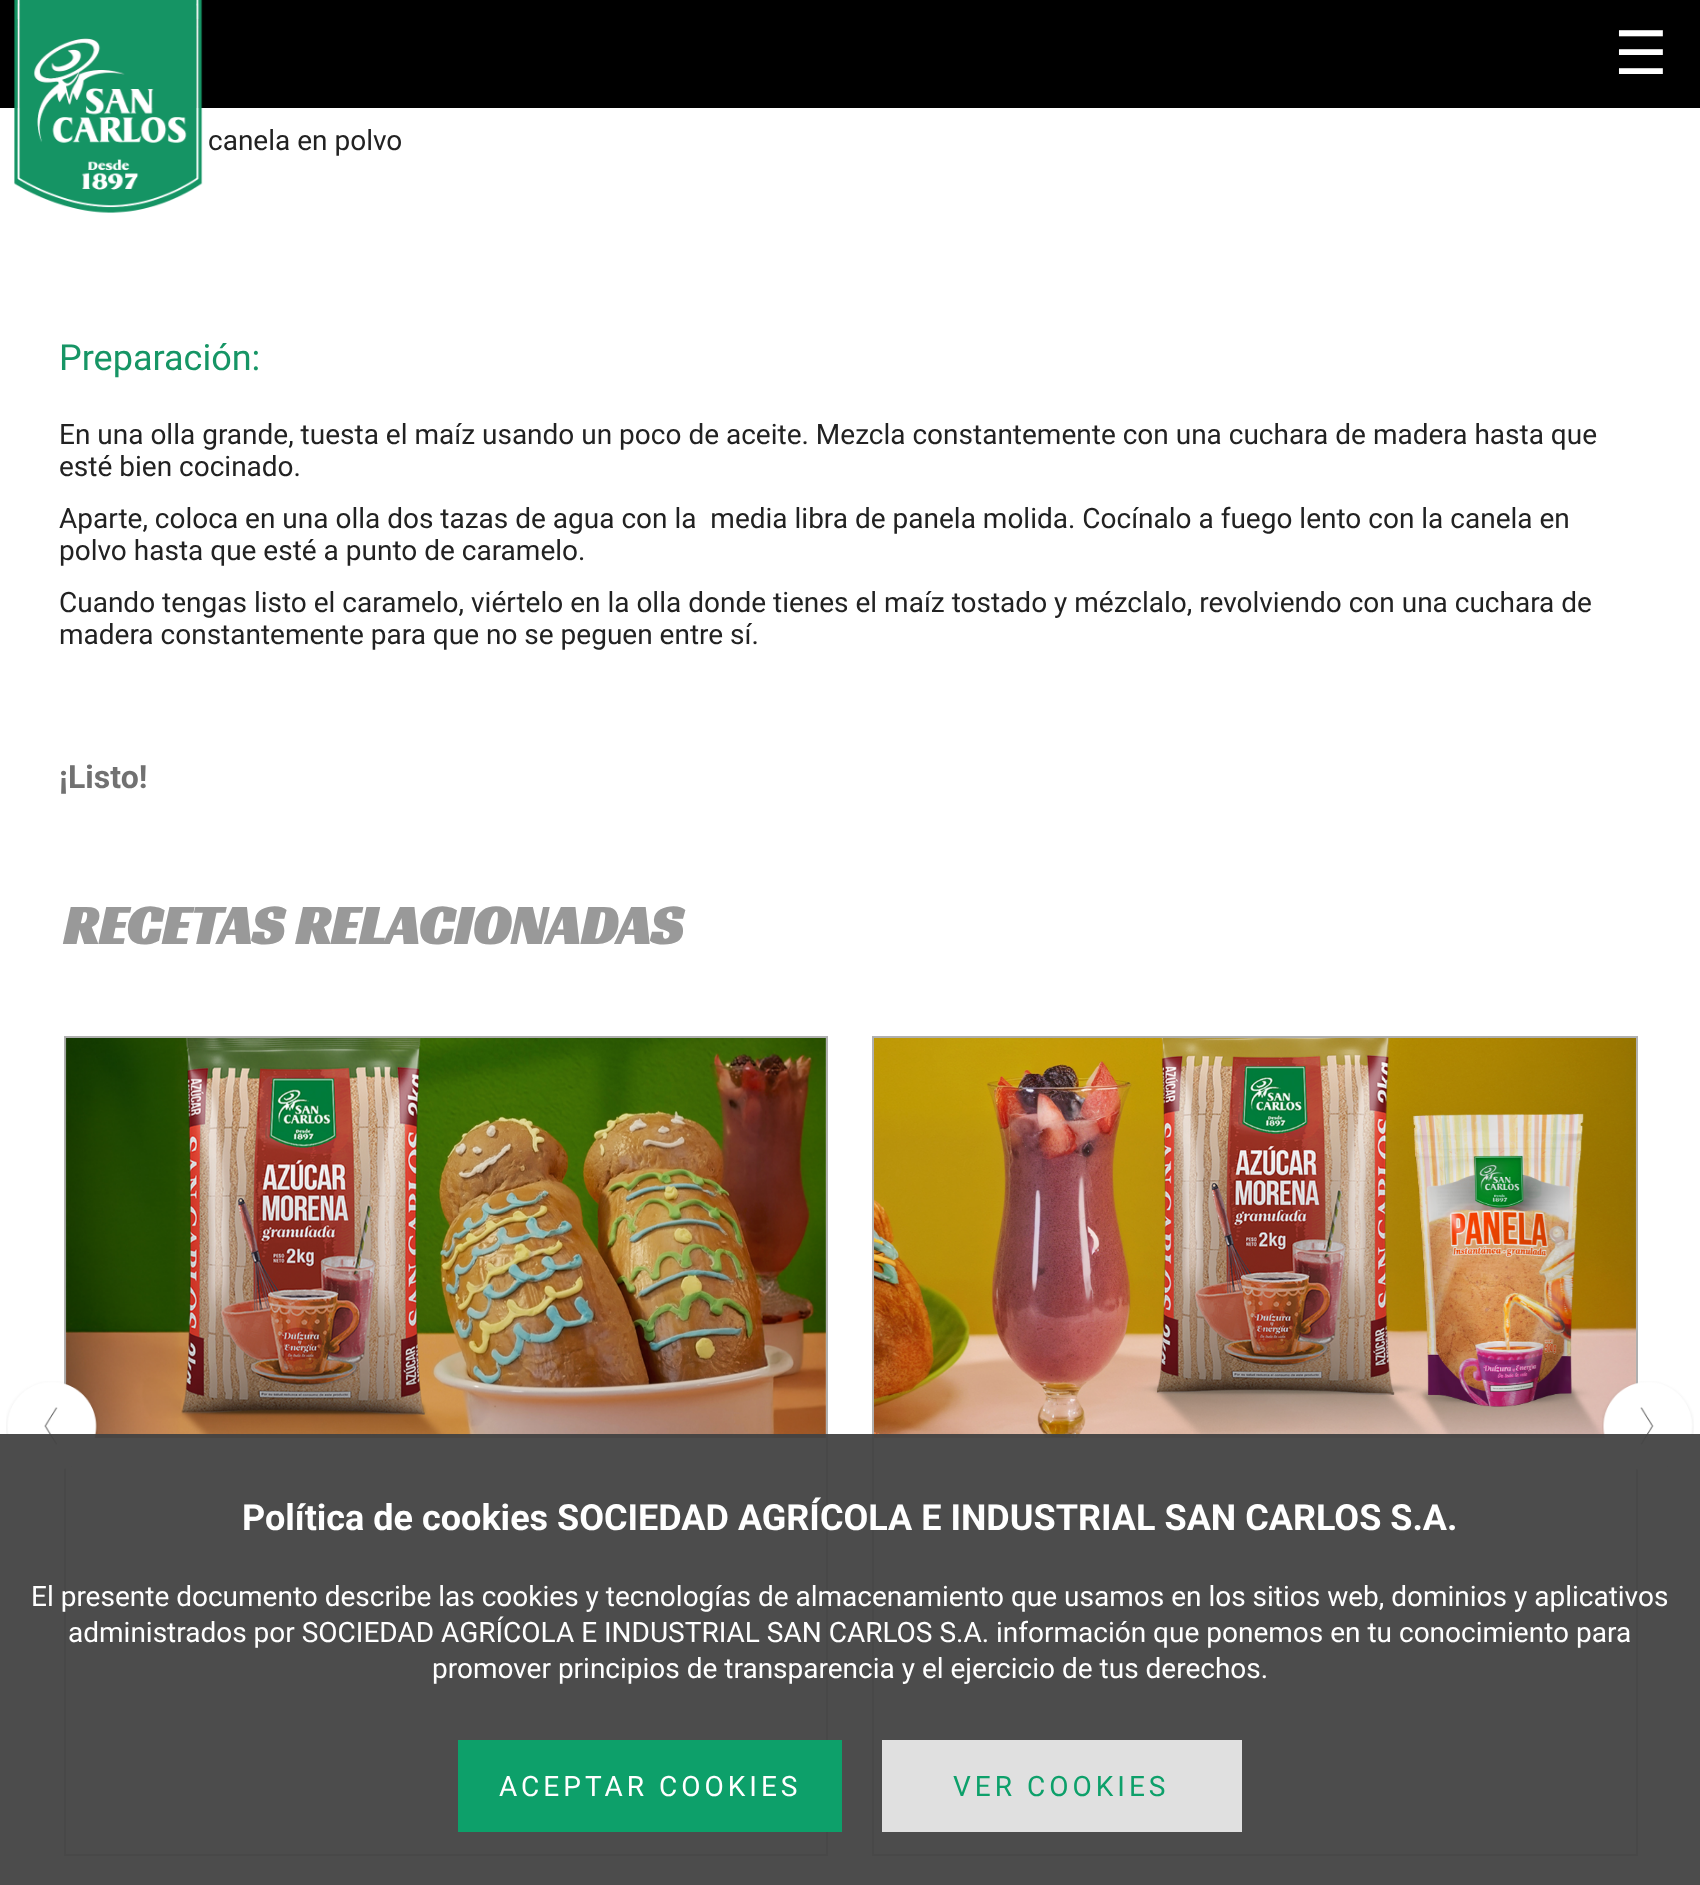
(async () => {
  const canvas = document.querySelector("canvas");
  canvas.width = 1700;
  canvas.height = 1885;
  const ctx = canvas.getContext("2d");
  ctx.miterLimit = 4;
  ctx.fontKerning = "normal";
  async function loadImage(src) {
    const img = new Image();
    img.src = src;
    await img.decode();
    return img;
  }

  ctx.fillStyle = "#ffffff";
  ctx.fillRect(0, 0, 1700, 1885);
  ctx.fillStyle = "#000000";
  ctx.fillRect(0, 0, 1700, 108);
  ctx.drawImage(await loadImage("img/1.png"), 14, 0, 189, 213);
  ctx.strokeStyle = "#b0b0b0";
  ctx.lineWidth = 2;
  ctx.strokeRect(65, 1037, 762, 818);
  ctx.drawImage(await loadImage("img/2.png"), 65, 1038, 761, 400);
  ctx.strokeRect(873, 1037, 764, 818);
  ctx.drawImage(await loadImage("img/3.png"), 874, 1038, 762, 400);
  ctx.drawImage(await loadImage("img/4.png"), 6, 1381, 92, 93);
  ctx.drawImage(await loadImage("img/5.png"), 1602, 1381, 92, 93);
  for (const [x, y, w, h, color] of [
    [0, 1434, 1700, 451, "rgba(66, 66, 66, 0.95)"],
    [458, 1740, 384, 92, "#0da06a"],
    [882, 1740, 360, 92, "#e0e0e0"],
  ]) {
    ctx.fillStyle = color;
    ctx.fillRect(x, y, w, h);
  }
  ctx.font = "60px DejaVu Sans";
  ctx.fillStyle = "#ffffff";
  ctx.fillText("☰", 1614, 74);
  ctx.font = "28px Roboto";
  ctx.fillStyle = "#222222";
  ctx.fillText("canela en polvo", 208, 150);
  ctx.font = "36px Roboto";
  ctx.fillStyle = "#169565";
  ctx.fillText("Preparación:", 59, 370);
  ctx.font = "28px Roboto";
  ctx.fillStyle = "#222222";
  for (const [text, x, y] of [
    ["En una olla grande, tuesta el maíz usando un poco de aceite. Mezcla constantemente con una cuchara de madera hasta que", 59, 444],
    ["esté bien cocinado.", 59, 476],
    ["Aparte, coloca en una olla dos tazas de agua con la  media libra de panela molida. Cocínalo a fuego lento con la canela en", 59, 528],
    ["polvo hasta que esté a punto de caramelo.", 59, 560],
    ["Cuando tengas listo el caramelo, viértelo en la olla donde tienes el maíz tostado y mézclalo, revolviendo con una cuchara de", 59, 612],
    ["madera constantemente para que no se peguen entre sí.", 59, 644],
  ]) {
    ctx.fillText(text, x, y);
  }
  ctx.font = "bold 32px Roboto";
  ctx.fillStyle = "#717171";
  ctx.fillText("¡Listo!", 59, 788);
  ctx.font = "bold 56px Racing Sans One";
  ctx.fillStyle = "#999999";
  ctx.fillText("RECETAS RELACIONADAS", 63, 944);
  ctx.font = "bold 36px Roboto";
  ctx.fillStyle = "#ffffff";
  ctx.fillText("Política de cookies SOCIEDAD AGRÍCOLA E INDUSTRIAL SAN CARLOS S.A.", 242, 1530);
  ctx.font = "28px Roboto";
  for (const [text, x, y] of [
    ["El presente documento describe las cookies y tecnologías de almacenamiento que usamos en los sitios web, dominios y aplicativos", 31, 1606],
    ["administrados por SOCIEDAD AGRÍCOLA E INDUSTRIAL SAN CARLOS S.A. información que ponemos en tu conocimiento para", 68, 1642],
    ["promover principios de transparencia y el ejercicio de tus derechos.", 432, 1678],
  ]) {
    ctx.fillText(text, x, y);
  }
  ctx.letterSpacing = "4px";
  ctx.fillText("ACEPTAR COOKIES", 499, 1796);
  ctx.fillStyle = "#0da06a";
  ctx.fillText("VER COOKIES", 953, 1796);
})();
